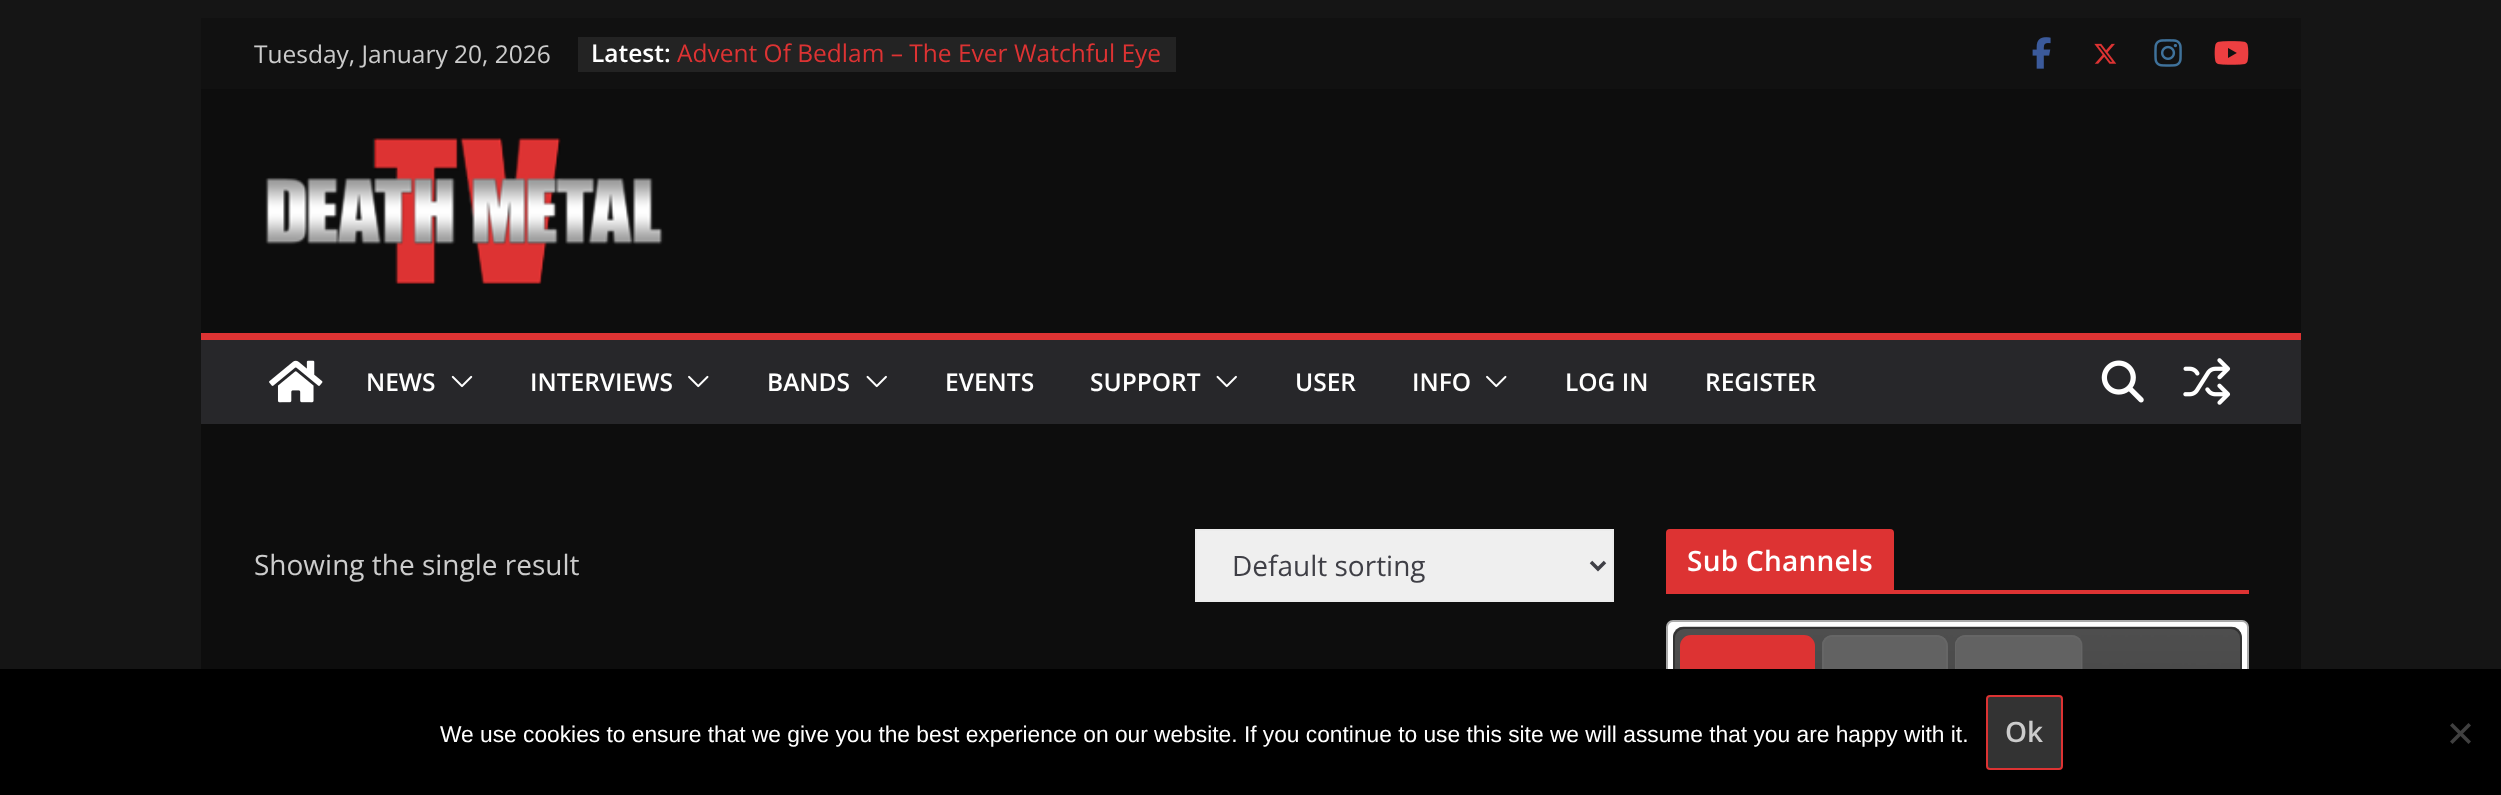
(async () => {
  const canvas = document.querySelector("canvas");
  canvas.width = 2501;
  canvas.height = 795;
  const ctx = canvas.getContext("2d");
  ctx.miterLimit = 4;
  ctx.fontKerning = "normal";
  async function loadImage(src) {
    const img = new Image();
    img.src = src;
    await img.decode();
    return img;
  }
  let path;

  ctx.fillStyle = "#151515";
  ctx.fillRect(0, 0, 2501, 795);
  for (const [x, y, w, h, color] of [
    [201, 424, 2100, 245, "#0d0d0d"],
    [201, 18, 2100, 71, "#111111"],
    [578, 37, 598, 35, "#232323"],
  ]) {
    ctx.fillStyle = color;
    ctx.fillRect(x, y, w, h);
  }
  ctx.drawImage(await loadImage("img/1.png"), 2032, 37, 19, 32);
  ctx.drawImage(await loadImage("img/2.png"), 2094, 43, 23, 21);
  ctx.drawImage(await loadImage("img/3.png"), 2154, 39, 28, 28);
  ctx.drawImage(await loadImage("img/4.png"), 2214, 41, 35, 24);
  ctx.fillStyle = "#0d0d0d";
  ctx.fillRect(201, 89, 2100, 244);
  ctx.drawImage(await loadImage("img/5.png"), 265, 137, 399, 147);
  ctx.fillStyle = "#27272a";
  ctx.fillRect(201, 340, 2100, 84);
  ctx.fillStyle = "#dd3333";
  ctx.fillRect(201, 333, 2100, 7);
  ctx.drawImage(await loadImage("img/6.png"), 269, 360, 54, 43);
  ctx.drawImage(await loadImage("img/7.png"), 451, 375, 22, 13);
  ctx.drawImage(await loadImage("img/8.png"), 688, 375, 21, 13);
  ctx.drawImage(await loadImage("img/9.png"), 866, 375, 21, 13);
  ctx.drawImage(await loadImage("img/9.png"), 1216, 375, 21, 13);
  ctx.drawImage(await loadImage("img/8.png"), 1486, 375, 21, 13);
  ctx.drawImage(await loadImage("img/10.png"), 2101, 360, 43, 43);
  ctx.drawImage(await loadImage("img/11.png"), 2183, 358, 48, 47);
  ctx.fillStyle = "#efefef";
  ctx.beginPath();
  ctx.rect(1196, 530, 417, 71);
  ctx.fill();
  ctx.strokeStyle = "#ebebeb";
  ctx.lineWidth = 2;
  ctx.stroke();
  path = new Path2D("M1591 562L1598 569L1605 562");
  ctx.strokeStyle = "#3f3f46";
  ctx.lineWidth = 3.5;
  ctx.stroke(path);
  ctx.fillStyle = "#dd3333";
  ctx.fillRect(1666, 590, 583, 4);
  ctx.beginPath();
  ctx.roundRect(1666, 529, 228, 61, [4, 4, 0, 0]);
  ctx.fill();
  ctx.fillStyle = "#ffffff";
  ctx.beginPath();
  ctx.roundRect(1667, 621, 581, 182, 6);
  ctx.fill();
  ctx.strokeStyle = "#aaaaaa";
  ctx.lineWidth = 2;
  ctx.stroke();
  ctx.drawImage(await loadImage("img/12.png"), 1673, 626, 569, 43);
  ctx.beginPath();
  ctx.roundRect(1674, 628, 567, 101, 10);
  ctx.strokeStyle = "#333333";
  ctx.stroke();
  ctx.fillStyle = "#dd3333";
  ctx.beginPath();
  ctx.roundRect(1681, 636, 133, 82, [10, 10, 0, 0]);
  ctx.fill();
  ctx.strokeStyle = "#dd3333";
  ctx.stroke();
  ctx.drawImage(await loadImage("img/13.png"), 1822, 635, 126, 34);
  ctx.fillStyle = "#666666";
  path = new Path2D("M1832 635H1937C1943 635 1948 640 1948 646V726H1822V646C1822 640 1826 635 1832 635ZM1832 637H1937C1942 637 1946 641 1946 646V726H1824V646C1824 641 1827 637 1832 637Z");
  ctx.fill(path, "evenodd");
  ctx.fillStyle = "#555555";
  ctx.beginPath();
  ctx.roundRect(1955, 635, 128, 91, [11, 11, 0, 0]);
  ctx.fill();
  ctx.drawImage(await loadImage("img/14.png"), 1955, 635, 128, 34);
  ctx.fillStyle = "#666666";
  path = new Path2D("M1965 635H2072C2078 635 2082 640 2082 646V726H1955V646C1955 640 1959 635 1965 635ZM1965 637H2072C2077 637 2081 641 2081 646V726H1956V646C1956 641 1960 637 1965 637Z");
  ctx.fill(path, "evenodd");
  ctx.fillStyle = "#000000";
  ctx.fillRect(0, 669, 2501, 126);
  ctx.fillStyle = "#333333";
  ctx.beginPath();
  ctx.roundRect(1987, 696, 75, 73, 3);
  ctx.fill();
  ctx.stroke();
  ctx.fillStyle = "#404040";
  path = new Path2D("M2468.5 723L2471 725.5L2452.5 744L2450 741.5Z");
  ctx.fill(path);
  path = new Path2D("M2450 725.5L2452.5 723L2471 741.5L2468.5 744Z");
  ctx.fill(path);
  ctx.font = "24.5px Open Sans";
  ctx.fillStyle = "#cccccc";
  ctx.fillText("Tuesday, January 20, 2026", 254, 63);
  ctx.font = "600 24.5px Open Sans";
  ctx.fillStyle = "#ffffff";
  ctx.fillText("Latest:", 591, 62);
  ctx.font = "24.5px Open Sans";
  ctx.fillStyle = "#dd3333";
  ctx.fillText("Advent Of Bedlam – The Ever Watchful Eye", 677, 62);
  ctx.font = "600 24.5px Open Sans";
  ctx.fillStyle = "#ffffff";
  for (const [text, x, y] of [
    ["NEWS", 366, 391],
    ["INTERVIEWS", 530, 391],
    ["BANDS", 767, 391],
    ["EVENTS", 945, 391],
    ["SUPPORT", 1090, 391],
    ["USER", 1295, 391],
    ["INFO", 1412, 391],
    ["LOG IN", 1565, 391],
    ["REGISTER", 1705, 391],
  ]) {
    ctx.fillText(text, x, y);
  }
  ctx.font = "28px Open Sans";
  ctx.fillStyle = "#cccccc";
  ctx.fillText("Showing the single result", 254, 575);
  ctx.fillStyle = "#3f3f46";
  ctx.fillText("Default sorting", 1232, 576);
  ctx.letterSpacing = "0.25px";
  ctx.font = "600 28px Open Sans";
  ctx.fillStyle = "#ffffff";
  ctx.fillText("Sub Channels", 1687, 571);
  ctx.letterSpacing = "0px";
  ctx.font = "22.75px Liberation Sans";
  ctx.fillText("We use cookies to ensure that we give you the best experience on our website. If you continue to use this site we will assume that you are happy with it.", 440, 742);
  ctx.font = "600 28px Open Sans";
  ctx.fillStyle = "#cccccc";
  ctx.fillText("Ok", 2005, 742);
})();
